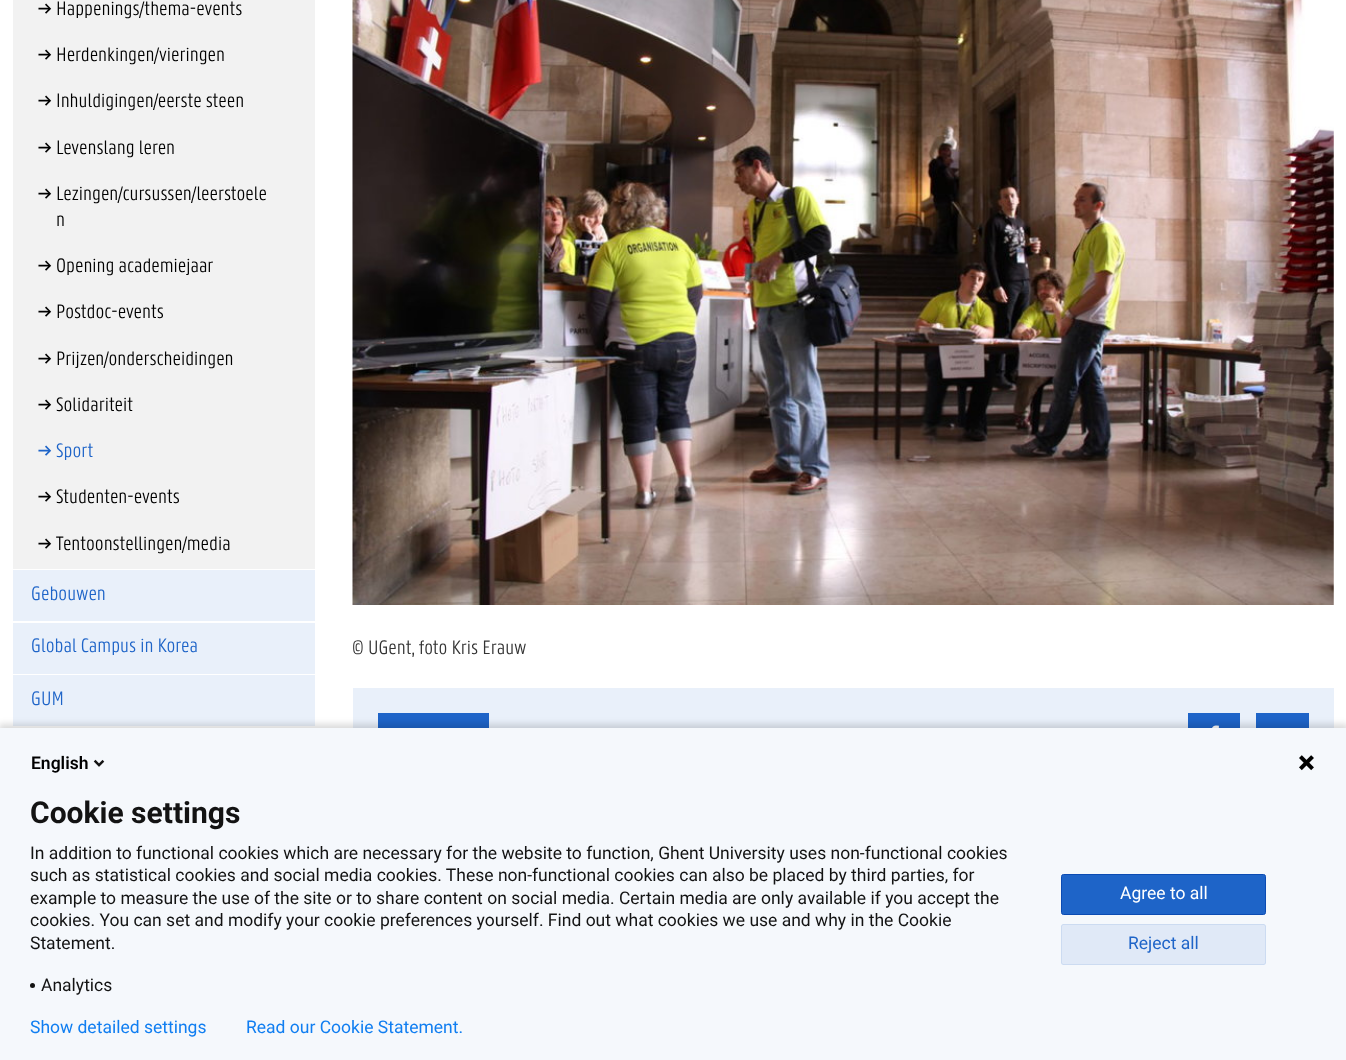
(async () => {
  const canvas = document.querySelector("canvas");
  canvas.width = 1346;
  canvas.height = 1060;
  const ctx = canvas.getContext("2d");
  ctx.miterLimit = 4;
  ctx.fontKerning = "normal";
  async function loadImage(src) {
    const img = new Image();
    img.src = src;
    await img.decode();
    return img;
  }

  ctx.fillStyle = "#ffffff";
  ctx.fillRect(0, 0, 1346, 1060);
  for (const [x, y, w, h, color] of [
    [13, 0, 302, 569, "#f2f2f2"],
    [13, 570, 302, 51, "#e9f0fa"],
    [13, 623, 302, 51, "#e9f0fa"],
    [13, 675, 302, 51, "#e9f0fa"],
  ]) {
    ctx.fillStyle = color;
    ctx.fillRect(x, y, w, h);
  }
  ctx.drawImage(await loadImage("img/1.png"), 352, 0, 982, 605);
  for (const [x, y, w, h, color] of [
    [353, 688, 981, 40, "#e9f0fa"],
    [378, 713, 111, 15, "#1e64c8"],
    [1188, 713, 52, 15, "#1e64c8"],
  ]) {
    ctx.fillStyle = color;
    ctx.fillRect(x, y, w, h);
  }
  ctx.drawImage(await loadImage("img/2.png"), 1212, 725, 7, 3);
  ctx.fillRect(1256, 713, 53, 15);
  ctx.fillStyle = "rgba(0, 0, 0, 0.14)";
  ctx.filter = "blur(3px)";
  ctx.beginPath();
  ctx.rect(-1, 724, 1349, 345);
  ctx.fill();
  ctx.filter = "none";
  ctx.fillStyle = "#f5f8fc";
  ctx.fillRect(0, 728, 1346, 332);
  ctx.drawImage(await loadImage("img/3.png"), 93, 759, 12, 8);
  ctx.drawImage(await loadImage("img/4.png"), 1299, 755, 15, 16);
  ctx.fillStyle = "#131313";
  ctx.beginPath();
  ctx.arc(32.5, 985.5, 2.5, 0, Math.PI * 2);
  ctx.fill();
  ctx.fillStyle = "#1e64c8";
  ctx.beginPath();
  ctx.roundRect(1061.5, 874.5, 204, 40, 2);
  ctx.fill();
  ctx.strokeStyle = "#0b4bb3";
  ctx.stroke();
  ctx.fillStyle = "#e0e9f7";
  ctx.beginPath();
  ctx.roundRect(1061, 924, 205, 41, 2.5);
  ctx.fill();
  ctx.beginPath();
  ctx.roundRect(1061.5, 924.5, 204, 40, 2);
  ctx.strokeStyle = "rgba(30, 100, 200, 0.1)";
  ctx.stroke();
  ctx.font = "500 20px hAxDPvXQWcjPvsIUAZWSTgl";
  ctx.fillStyle = "#000000";
  ctx.fillText("→", 38, 15);
  ctx.font = "300 21.25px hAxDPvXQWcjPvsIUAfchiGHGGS";
  ctx.fillText("Happenings/thema-events", 56, 15);
  ctx.font = "500 20px hAxDPvXQWcjPvsIUAZWSTgl";
  ctx.fillText("→", 38, 61);
  ctx.font = "300 21.25px hAxDPvXQWcjPvsIUAfchiGHGGS";
  ctx.fillText("Herdenkingen/vieringen", 56, 61);
  ctx.font = "500 20px hAxDPvXQWcjPvsIUAZWSTgl";
  ctx.fillText("→", 38, 107);
  ctx.font = "300 21.25px hAxDPvXQWcjPvsIUAfchiGHGGS";
  ctx.fillText("Inhuldigingen/eerste steen", 56, 107);
  ctx.font = "500 20px hAxDPvXQWcjPvsIUAZWSTgl";
  ctx.fillText("→", 38, 154);
  ctx.font = "300 21.25px hAxDPvXQWcjPvsIUAfchiGHGGS";
  ctx.fillText("Levenslang leren", 56, 154);
  ctx.font = "500 20px hAxDPvXQWcjPvsIUAZWSTgl";
  ctx.fillText("→", 38, 200);
  ctx.font = "300 21.25px hAxDPvXQWcjPvsIUAfchiGHGGS";
  ctx.fillText("Lezingen/cursussen/leerstoele", 56, 200);
  ctx.fillText("n", 56, 226);
  ctx.font = "500 20px hAxDPvXQWcjPvsIUAZWSTgl";
  ctx.fillText("→", 38, 272);
  ctx.font = "300 21.25px hAxDPvXQWcjPvsIUAfchiGHGGS";
  ctx.fillText("Opening academiejaar", 56, 272);
  ctx.font = "500 20px hAxDPvXQWcjPvsIUAZWSTgl";
  ctx.fillText("→", 38, 318);
  ctx.font = "300 21.25px hAxDPvXQWcjPvsIUAfchiGHGGS";
  ctx.fillText("Postdoc-events", 56, 318);
  ctx.font = "500 20px hAxDPvXQWcjPvsIUAZWSTgl";
  ctx.fillText("→", 38, 365);
  ctx.font = "300 21.25px hAxDPvXQWcjPvsIUAfchiGHGGS";
  ctx.fillText("Prijzen/onderscheidingen", 56, 365);
  ctx.font = "500 20px hAxDPvXQWcjPvsIUAZWSTgl";
  ctx.fillText("→", 38, 411);
  ctx.font = "300 21.25px hAxDPvXQWcjPvsIUAfchiGHGGS";
  ctx.fillText("Solidariteit", 56, 411);
  ctx.font = "500 20px hAxDPvXQWcjPvsIUAZWSTgl";
  ctx.fillStyle = "#1e64c8";
  ctx.fillText("→", 38, 457);
  ctx.font = "300 21.25px hAxDPvXQWcjPvsIUAfchiGHGGS";
  ctx.fillText("Sport", 56, 457);
  ctx.font = "500 20px hAxDPvXQWcjPvsIUAZWSTgl";
  ctx.fillStyle = "#000000";
  ctx.fillText("→", 38, 503);
  ctx.font = "300 21.25px hAxDPvXQWcjPvsIUAfchiGHGGS";
  ctx.fillText("Studenten-events", 56, 503);
  ctx.font = "500 20px hAxDPvXQWcjPvsIUAZWSTgl";
  ctx.fillText("→", 38, 550);
  ctx.font = "300 21.25px hAxDPvXQWcjPvsIUAfchiGHGGS";
  ctx.fillText("Tentoonstellingen/media", 56, 550);
  ctx.fillStyle = "#1e64c8";
  for (const [text, x, y] of [
    ["Gebouwen", 31, 600],
    ["Global Campus in Korea", 31, 652],
    ["GUM", 31, 705],
  ]) {
    ctx.fillText(text, x, y);
  }
  ctx.fillStyle = "#333333";
  ctx.fillText("© UGent, foto Kris Erauw", 352, 654);
  ctx.font = "600 17.5px Roboto";
  ctx.fillStyle = "#000000";
  ctx.fillText("English", 31, 769);
  ctx.font = "bold 30px Roboto";
  ctx.fillStyle = "#131313";
  ctx.fillText("Cookie settings", 30, 823);
  ctx.font = "17.5px Roboto";
  for (const [text, x, y] of [
    ["In addition to functional cookies which are necessary for the website to function, Ghent University uses non-functional cookies", 30, 859],
    ["such as statistical cookies and social media cookies. These non-functional cookies can also be placed by third parties, for", 30, 881],
    ["example to measure the use of the site or to share content on social media. Certain media are only available if you accept the", 30, 904],
    ["cookies. You can set and modify your cookie preferences yourself. Find out what cookies we use and why in the Cookie", 30, 926],
    ["Statement.", 30, 949],
    ["Analytics", 41, 991],
  ]) {
    ctx.fillText(text, x, y);
  }
  ctx.fillStyle = "#ffffff";
  ctx.fillText("Agree to all", 1120, 899);
  ctx.fillStyle = "#1e64c8";
  ctx.fillText("Reject all", 1128, 949);
  ctx.fillStyle = "#107ef1";
  ctx.fillText("Show detailed settings", 30, 1033);
  ctx.fillText("Read our Cookie Statement.", 246, 1033);
})();
